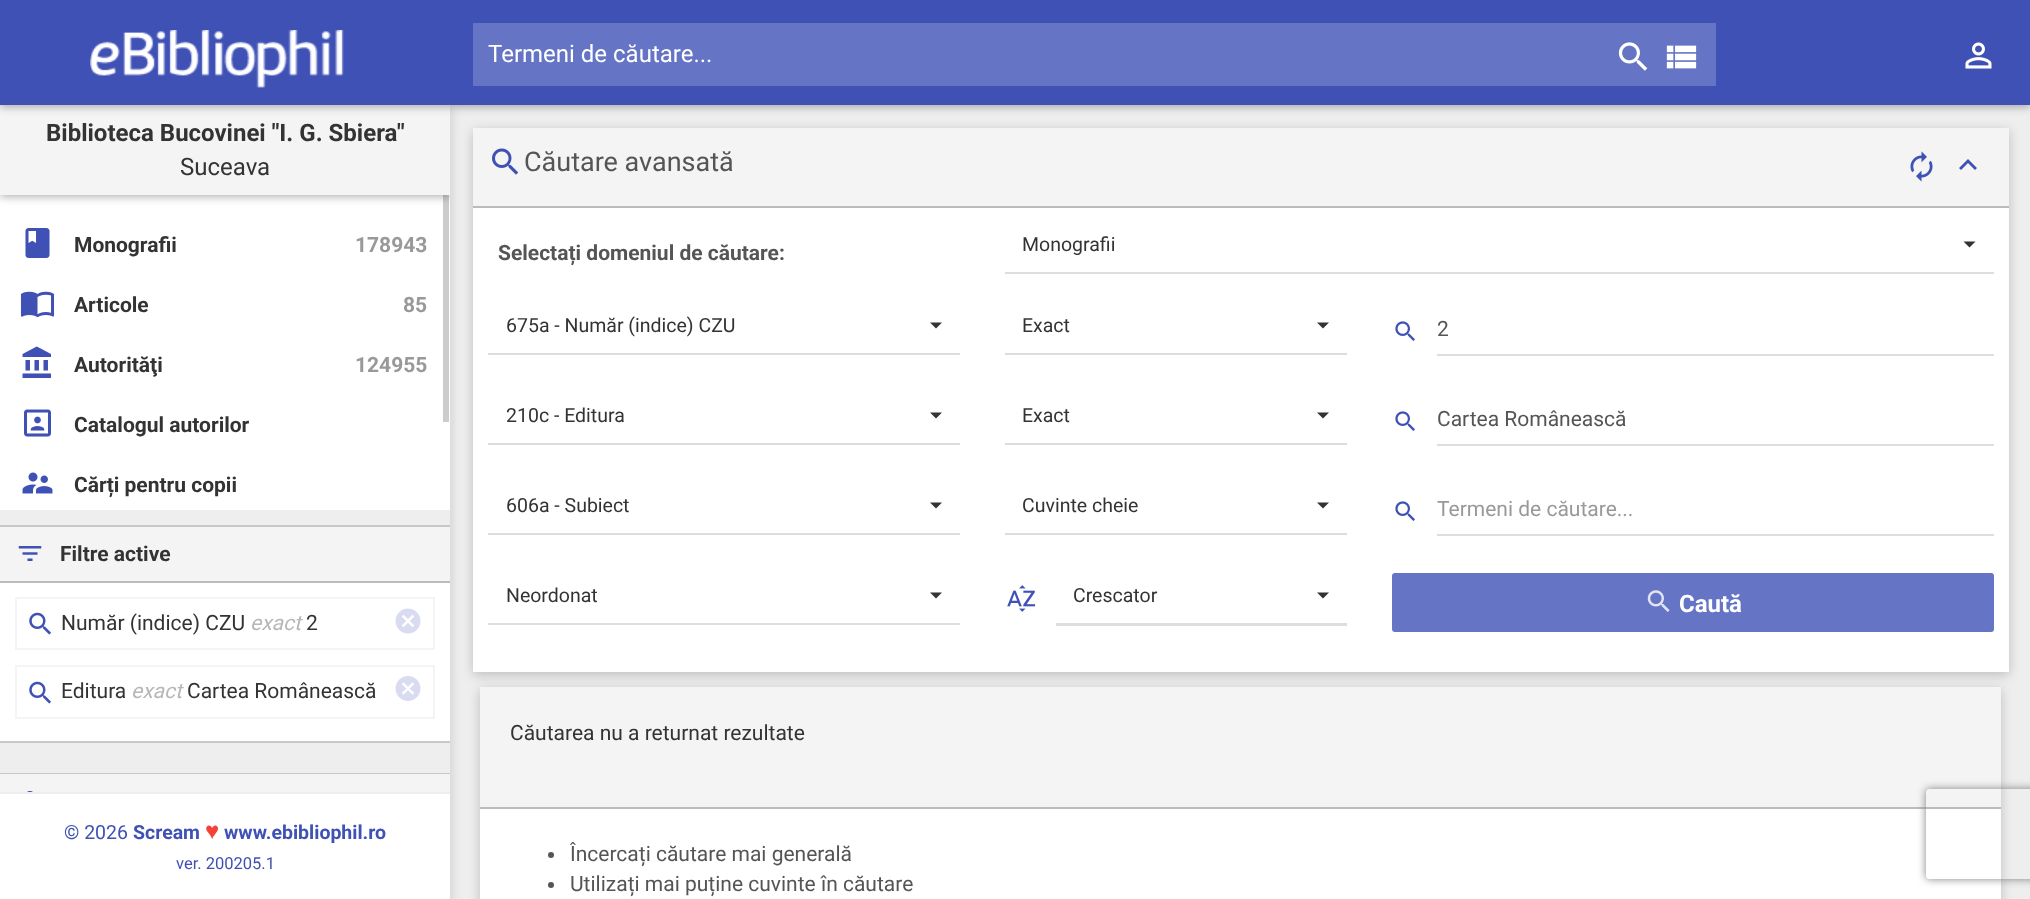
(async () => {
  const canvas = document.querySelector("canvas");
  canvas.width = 2030;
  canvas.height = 899;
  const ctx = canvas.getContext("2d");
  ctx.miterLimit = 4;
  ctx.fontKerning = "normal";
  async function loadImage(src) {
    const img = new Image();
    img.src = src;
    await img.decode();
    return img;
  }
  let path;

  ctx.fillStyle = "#eeeeee";
  ctx.fillRect(0, 0, 2030, 899);
  ctx.fillStyle = "rgba(0, 0, 0, 0.1)";
  ctx.filter = "blur(4px)";
  ctx.beginPath();
  ctx.rect(3, 108, 450, 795);
  ctx.fill();
  ctx.filter = "none";
  ctx.fillStyle = "#ffffff";
  ctx.fillRect(0, 195, 450, 315);
  ctx.save();
  ctx.beginPath();
  ctx.rect(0, 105, 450, 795);
  ctx.clip();
  ctx.fillStyle = "rgba(0, 0, 0, 0.3)";
  ctx.filter = "blur(4px)";
  ctx.beginPath();
  ctx.rect(0, 107, 450, 90);
  ctx.fill();
  ctx.filter = "none";
  ctx.restore();
  ctx.fillStyle = "#f4f4f4";
  ctx.fillRect(0, 105, 450, 90);
  ctx.fillStyle = "rgba(0, 0, 0, 0.3)";
  ctx.filter = "blur(4px)";
  ctx.beginPath();
  ctx.rect(0, 2, 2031, 105);
  ctx.fill();
  ctx.filter = "none";
  ctx.fillStyle = "#3f51b5";
  ctx.fillRect(0, 0, 2030, 105);
  ctx.drawImage(await loadImage("img/1.png"), 90, 30, 254, 58);
  ctx.fillStyle = "#6574c4";
  ctx.fillRect(473, 23, 1243, 63);
  ctx.drawImage(await loadImage("img/2.png"), 1618, 42, 30, 29);
  ctx.drawImage(await loadImage("img/3.png"), 1666, 45, 31, 24);
  ctx.drawImage(await loadImage("img/4.png"), 1965, 42, 27, 27);
  ctx.drawImage(await loadImage("img/5.png"), 25, 228, 25, 30);
  ctx.drawImage(await loadImage("img/6.png"), 20, 291, 35, 27);
  ctx.drawImage(await loadImage("img/7.png"), 22, 346, 29, 32);
  ctx.drawImage(await loadImage("img/8.png"), 24, 409, 27, 28);
  ctx.drawImage(await loadImage("img/9.png"), 22, 472, 31, 22);
  for (const [x, y, w, h, color] of [
    [0, 510, 450, 263, "#eeeeee"],
    [0, 583, 450, 158, "#ffffff"],
    [0, 525, 450, 2, "#c8c8c8"],
    [0, 741, 450, 2, "#c8c8c8"],
    [0, 527, 450, 54, "#f4f4f4"],
    [0, 581, 450, 2, "#bbbbbb"],
  ]) {
    ctx.fillStyle = color;
    ctx.fillRect(x, y, w, h);
  }
  ctx.drawImage(await loadImage("img/10.png"), 18, 546, 24, 15);
  ctx.strokeStyle = "#f4f4f4";
  ctx.lineWidth = 2;
  ctx.strokeRect(16, 598, 418, 51);
  ctx.drawImage(await loadImage("img/11.png"), 29, 612, 22, 23);
  ctx.drawImage(await loadImage("img/12.png"), 395, 608, 26, 26);
  ctx.strokeRect(16, 666, 418, 52);
  ctx.drawImage(await loadImage("img/11.png"), 29, 681, 22, 23);
  ctx.drawImage(await loadImage("img/13.png"), 395, 676, 26, 25);
  ctx.fillStyle = "#c8c8c8";
  ctx.fillRect(0, 773, 450, 1);
  ctx.fillStyle = "#f4f4f4";
  ctx.fillRect(0, 774, 450, 18);
  ctx.drawImage(await loadImage("img/14.png"), 27, 791, 6, 1);
  for (const [x, y, w, h, color] of [
    [443, 195, 6, 227, "rgba(0, 0, 0, 0.2)"],
    [0, 794, 450, 105, "#ffffff"],
    [0, 792, 450, 2, "#eeeeee"],
  ]) {
    ctx.fillStyle = color;
    ctx.fillRect(x, y, w, h);
  }
  ctx.fillStyle = "rgba(0, 0, 0, 0.2)";
  ctx.filter = "blur(6px)";
  ctx.beginPath();
  ctx.rect(473, 131, 1536, 544);
  ctx.fill();
  ctx.filter = "none";
  for (const [x, y, w, h, color] of [
    [473, 208, 1536, 464, "#ffffff"],
    [473, 128, 1536, 78, "#f4f4f4"],
    [473, 206, 1536, 2, "#bbbbbb"],
  ]) {
    ctx.fillStyle = color;
    ctx.fillRect(x, y, w, h);
  }
  ctx.drawImage(await loadImage("img/15.png"), 492, 148, 27, 27);
  ctx.drawImage(await loadImage("img/16.png"), 1910, 151, 23, 31);
  ctx.fillStyle = "#3f51b5";
  path = new Path2D("M1961 170L1959 168L1968 159L1977 168L1975 170L1968 163Z");
  ctx.fill(path);
  ctx.fillStyle = "#dddddd";
  ctx.fillRect(1005, 272, 989, 2);
  ctx.fillStyle = "#333333";
  path = new Path2D("M1963.5 241.5H1975.5L1969.5 247.5Z");
  ctx.fill(path);
  ctx.fillStyle = "#dddddd";
  ctx.fillRect(488, 353, 472, 2);
  ctx.fillStyle = "#333333";
  path = new Path2D("M930 322.5H942L936 328.5Z");
  ctx.fill(path);
  ctx.fillStyle = "#dddddd";
  ctx.fillRect(1005, 353, 342, 2);
  ctx.fillStyle = "#333333";
  path = new Path2D("M1317 322.5H1329L1323 328.5Z");
  ctx.fill(path);
  ctx.drawImage(await loadImage("img/17.png"), 1395, 321, 20, 20);
  ctx.fillStyle = "#dddddd";
  ctx.fillRect(1437, 354, 557, 2);
  ctx.fillRect(488, 443, 472, 2);
  ctx.fillStyle = "#333333";
  path = new Path2D("M930 412.5H942L936 418.5Z");
  ctx.fill(path);
  ctx.fillStyle = "#dddddd";
  ctx.fillRect(1005, 443, 342, 2);
  ctx.fillStyle = "#333333";
  path = new Path2D("M1317 412.5H1329L1323 418.5Z");
  ctx.fill(path);
  ctx.drawImage(await loadImage("img/17.png"), 1395, 411, 20, 20);
  ctx.fillStyle = "#dddddd";
  ctx.fillRect(1437, 444, 557, 2);
  ctx.fillRect(488, 533, 472, 2);
  ctx.fillStyle = "#333333";
  path = new Path2D("M930 502.5H942L936 508.5Z");
  ctx.fill(path);
  ctx.fillStyle = "#dddddd";
  ctx.fillRect(1005, 533, 342, 2);
  ctx.fillStyle = "#333333";
  path = new Path2D("M1317 502.5H1329L1323 508.5Z");
  ctx.fill(path);
  ctx.drawImage(await loadImage("img/17.png"), 1395, 501, 20, 20);
  ctx.fillStyle = "#dddddd";
  ctx.fillRect(1437, 534, 557, 2);
  ctx.fillRect(488, 623, 472, 2);
  ctx.fillStyle = "#333333";
  path = new Path2D("M930 592.5H942L936 598.5Z");
  ctx.fill(path);
  ctx.drawImage(await loadImage("img/18.png"), 1007, 585, 29, 27);
  ctx.fillStyle = "#dddddd";
  ctx.fillRect(1056, 623, 291, 3);
  ctx.fillStyle = "#333333";
  path = new Path2D("M1317 592.5H1329L1323 598.5Z");
  ctx.fill(path);
  ctx.fillStyle = "#6574c4";
  ctx.beginPath();
  ctx.roundRect(1392, 573, 602, 59, 3);
  ctx.fill();
  ctx.drawImage(await loadImage("img/19.png"), 1647, 590, 23, 22);
  ctx.fillStyle = "rgba(0, 0, 0, 0.2)";
  ctx.filter = "blur(6px)";
  ctx.beginPath();
  ctx.rect(480, 690, 1521, 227);
  ctx.fill();
  ctx.filter = "none";
  for (const [x, y, w, h, color] of [
    [480, 809, 1521, 90, "#ffffff"],
    [480, 687, 1521, 120, "#f4f4f4"],
    [480, 807, 1521, 2, "#bbbbbb"],
  ]) {
    ctx.fillStyle = color;
    ctx.fillRect(x, y, w, h);
  }
  ctx.fillStyle = "#555555";
  ctx.beginPath();
  ctx.arc(551, 855, 3, 0, Math.PI * 2);
  ctx.fill();
  ctx.beginPath();
  ctx.arc(551, 885, 3, 0, Math.PI * 2);
  ctx.fill();
  ctx.save();
  path = new Path2D("M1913 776H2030V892H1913ZM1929 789H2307C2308.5 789 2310 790.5 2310 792V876C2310 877.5 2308.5 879 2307 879H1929C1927.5 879 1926 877.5 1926 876V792C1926 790.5 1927.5 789 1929 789Z");
  ctx.clip(path, "evenodd");
  ctx.fillStyle = "#808080";
  ctx.filter = "blur(4px)";
  ctx.beginPath();
  ctx.roundRect(1926, 789, 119, 90, 3);
  ctx.fill();
  ctx.filter = "none";
  ctx.restore();
  ctx.font = "24px Roboto";
  ctx.fillStyle = "#ffffff";
  ctx.fillText("Termeni de căutare...", 488, 62);
  ctx.font = "bold 24px Roboto";
  ctx.fillStyle = "#333333";
  ctx.fillText("Biblioteca Bucovinei \"I. G. Sbiera\"", 46, 141);
  ctx.font = "24px Roboto";
  ctx.fillText("Suceava", 180, 175);
  ctx.font = "bold 21px Roboto";
  ctx.fillText("Monografii", 74, 252);
  ctx.fillStyle = "#999999";
  ctx.fillText("178943", 355, 252);
  ctx.fillStyle = "#333333";
  ctx.fillText("Articole", 74, 312);
  ctx.fillStyle = "#999999";
  ctx.fillText("85", 403, 312);
  ctx.fillStyle = "#333333";
  ctx.fillText("Autorităţi", 74, 372);
  ctx.fillStyle = "#999999";
  ctx.fillText("124955", 355, 372);
  ctx.fillStyle = "#333333";
  for (const [text, x, y] of [
    ["Catalogul autorilor", 74, 432],
    ["Cărți pentru copii", 74, 492],
    ["Filtre active", 60, 561],
  ]) {
    ctx.fillText(text, x, y);
  }
  ctx.font = "21px Roboto";
  ctx.fillText("Număr (indice) CZU", 61, 630);
  ctx.font = "italic 21px Roboto";
  ctx.fillStyle = "#b7b7b7";
  ctx.fillText("exact", 250, 630);
  ctx.font = "21px Roboto";
  ctx.fillStyle = "#333333";
  ctx.fillText("2", 306, 630);
  ctx.fillText("Editura", 61, 698);
  ctx.font = "italic 21px Roboto";
  ctx.fillStyle = "#b7b7b7";
  ctx.fillText("exact", 131, 698);
  ctx.font = "21px Roboto";
  ctx.fillStyle = "#333333";
  ctx.fillText("Cartea Românească", 187, 698);
  ctx.font = "19.5px Roboto";
  ctx.fillStyle = "#3f51b5";
  ctx.fillText("© 2026", 64, 839);
  ctx.font = "bold 19.5px Roboto";
  ctx.fillText("Scream", 133, 839);
  ctx.font = "24px Liberation Sans";
  ctx.fillStyle = "#f44336";
  ctx.fillText("♥", 205, 839);
  ctx.font = "bold 19.5px Roboto";
  ctx.fillStyle = "#3f51b5";
  ctx.fillText("www.ebibliophil.ro", 224, 839);
  ctx.font = "16.5px Roboto";
  ctx.fillText("ver. 200205.1", 176, 869);
  ctx.font = "27px Roboto";
  ctx.fillStyle = "#555555";
  ctx.fillText("Căutare avansată", 524, 171);
  ctx.font = "bold 21px Roboto";
  ctx.fillText("Selectați domeniul de căutare:", 498, 260);
  ctx.font = "19.5px Roboto";
  ctx.fillStyle = "#333333";
  for (const [text, x, y] of [
    ["Monografii", 1022, 251],
    ["675a - Număr (indice) CZU", 506, 332],
    ["Exact", 1022, 332],
  ]) {
    ctx.fillText(text, x, y);
  }
  ctx.font = "21px Roboto";
  ctx.fillStyle = "#555555";
  ctx.fillText("2", 1437, 336);
  ctx.font = "19.5px Roboto";
  ctx.fillStyle = "#333333";
  ctx.fillText("210c - Editura", 506, 422);
  ctx.fillText("Exact", 1022, 422);
  ctx.font = "21px Roboto";
  ctx.fillStyle = "#555555";
  ctx.fillText("Cartea Românească", 1437, 426);
  ctx.font = "19.5px Roboto";
  ctx.fillStyle = "#333333";
  ctx.fillText("606a - Subiect", 506, 512);
  ctx.fillText("Cuvinte cheie", 1022, 512);
  ctx.font = "21px Roboto";
  ctx.fillStyle = "#999999";
  ctx.fillText("Termeni de căutare...", 1437, 516);
  ctx.font = "19.5px Roboto";
  ctx.fillStyle = "#333333";
  ctx.fillText("Neordonat", 506, 602);
  ctx.fillText("Crescator", 1073, 602);
  ctx.font = "bold 24px Roboto";
  ctx.fillStyle = "#ffffff";
  ctx.fillText("Caută", 1679, 612);
  ctx.font = "21px Roboto";
  ctx.fillStyle = "#333333";
  ctx.fillText("Căutarea nu a returnat rezultate", 510, 740);
  ctx.fillStyle = "#555555";
  ctx.fillText("Încercați căutare mai generală", 570, 861);
  ctx.fillText("Utilizați mai puține cuvinte în căutare", 570, 891);
})();
